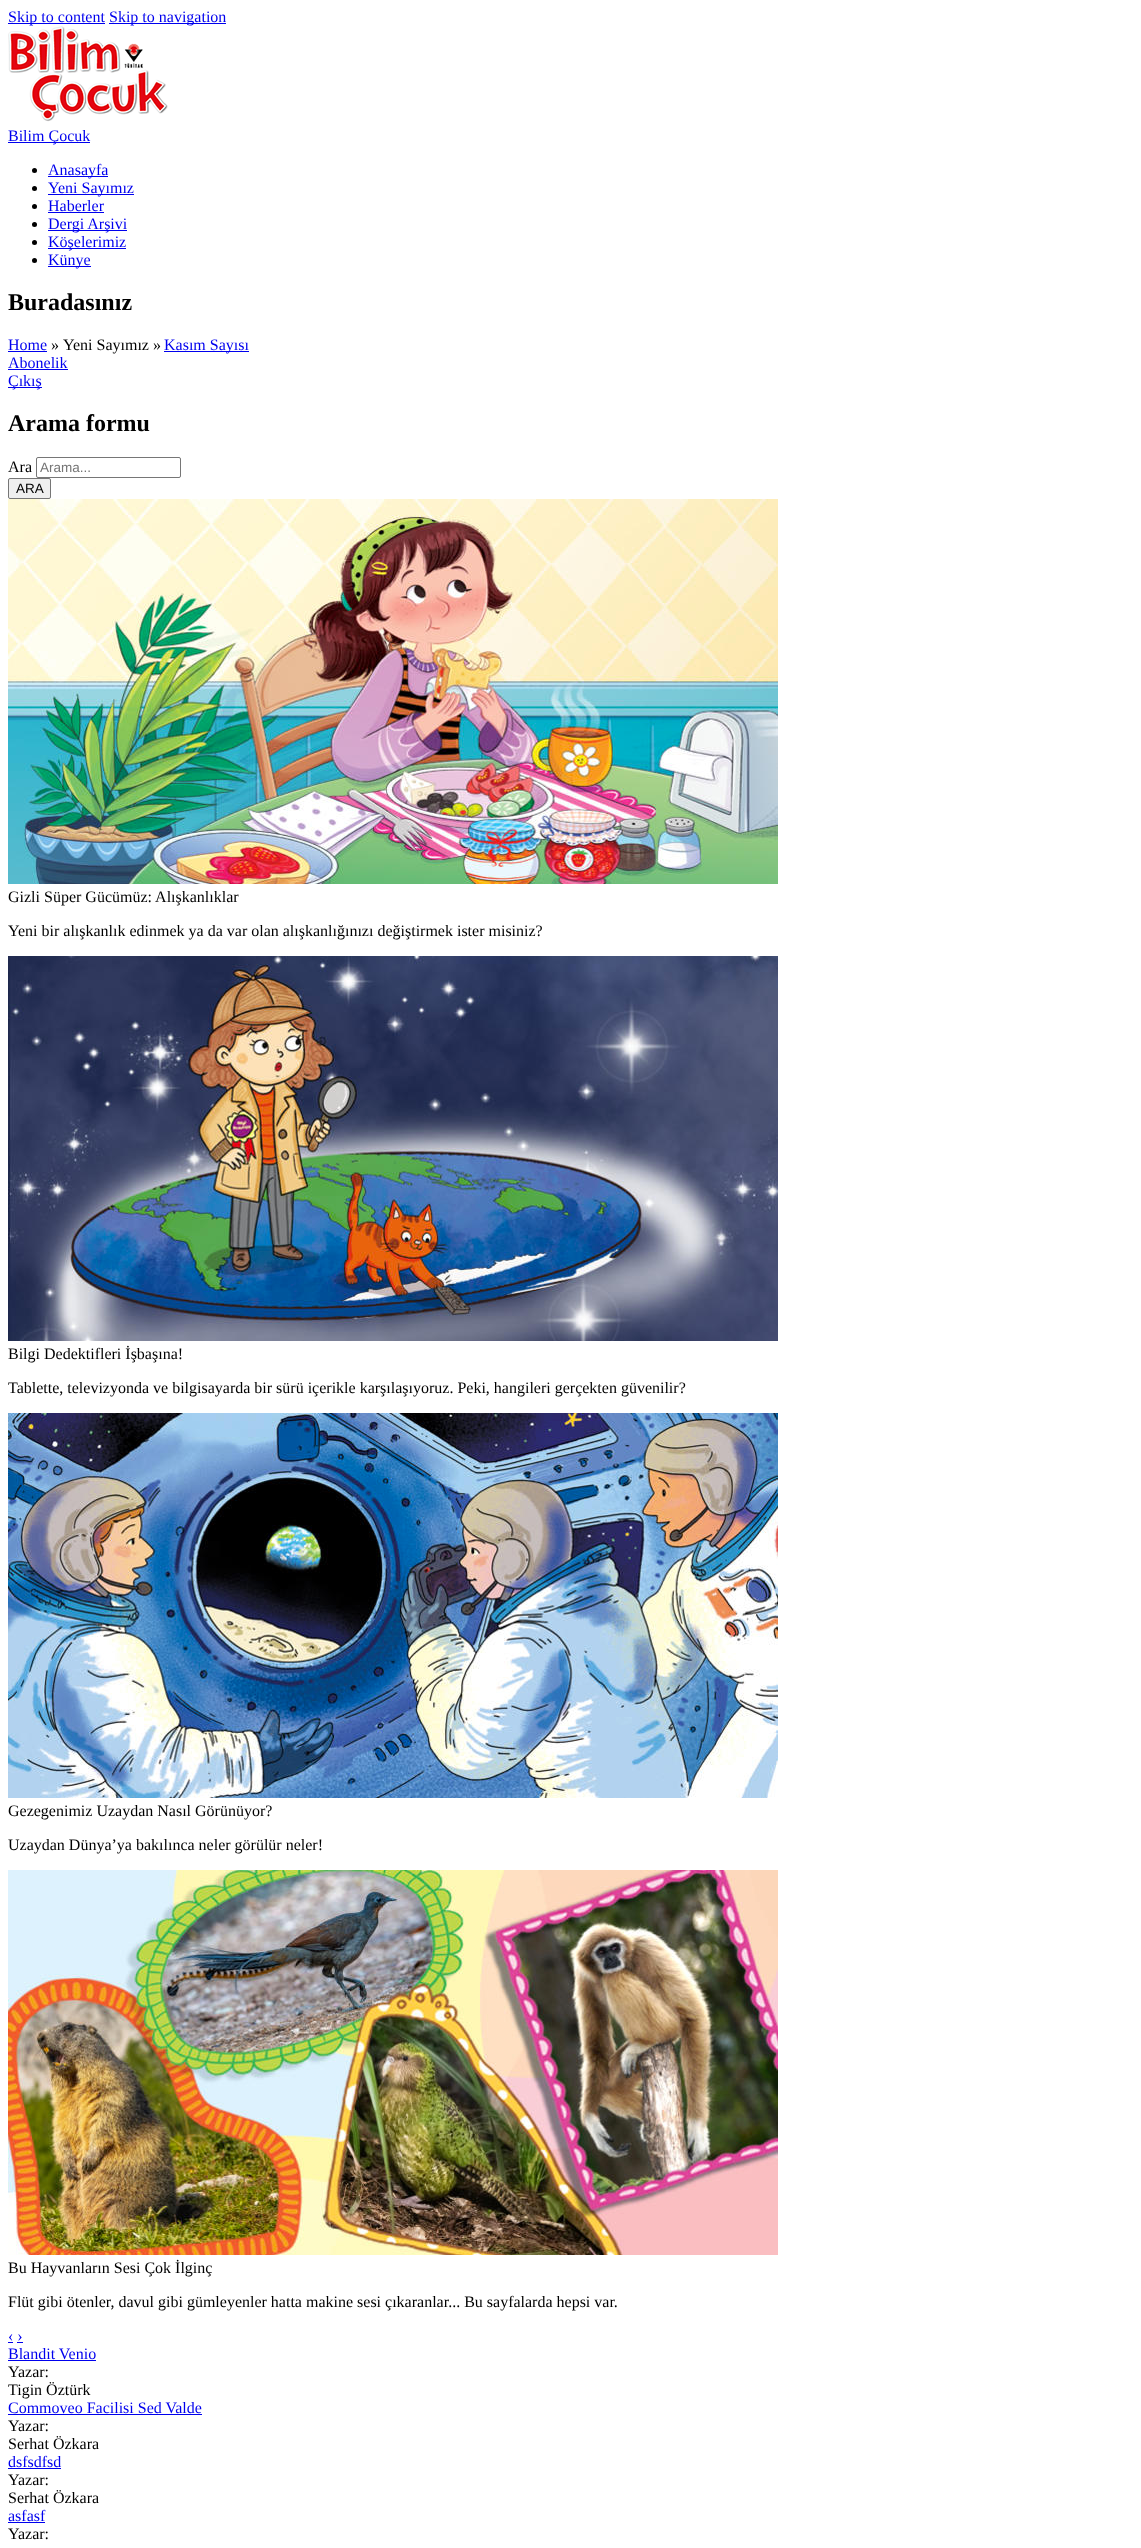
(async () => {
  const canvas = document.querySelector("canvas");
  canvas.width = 1141;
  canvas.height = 2548;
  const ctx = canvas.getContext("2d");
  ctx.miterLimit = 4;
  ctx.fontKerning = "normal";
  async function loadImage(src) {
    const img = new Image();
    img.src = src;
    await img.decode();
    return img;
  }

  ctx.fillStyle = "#ffffff";
  ctx.fillRect(0, 0, 1141, 2548);
  ctx.fillStyle = "#0000ee";
  ctx.fillRect(8, 23, 97, 1);
  ctx.fillRect(109, 23, 117, 1);
  ctx.drawImage(await loadImage("img/1.png"), 8, 26, 160, 96);
  ctx.fillRect(8, 142, 82, 1);
  ctx.fillStyle = "#000000";
  ctx.beginPath();
  ctx.arc(34.5, 170.5, 2.5, 0, Math.PI * 2);
  ctx.fill();
  ctx.fillStyle = "#0000ee";
  ctx.fillRect(48, 176, 60, 1);
  ctx.fillStyle = "#000000";
  ctx.beginPath();
  ctx.arc(34.5, 188.5, 2.5, 0, Math.PI * 2);
  ctx.fill();
  ctx.fillStyle = "#0000ee";
  ctx.fillRect(48, 194, 86, 1);
  ctx.fillStyle = "#000000";
  ctx.beginPath();
  ctx.arc(34.5, 206.5, 2.5, 0, Math.PI * 2);
  ctx.fill();
  ctx.fillStyle = "#0000ee";
  ctx.fillRect(48, 212, 56, 1);
  ctx.fillStyle = "#000000";
  ctx.beginPath();
  ctx.arc(34.5, 224.5, 2.5, 0, Math.PI * 2);
  ctx.fill();
  ctx.fillStyle = "#0000ee";
  ctx.fillRect(48, 230, 79, 1);
  ctx.fillStyle = "#000000";
  ctx.beginPath();
  ctx.arc(34.5, 242.5, 2.5, 0, Math.PI * 2);
  ctx.fill();
  ctx.fillStyle = "#0000ee";
  ctx.fillRect(48, 248, 78, 1);
  ctx.fillStyle = "#000000";
  ctx.beginPath();
  ctx.arc(34.5, 260.5, 2.5, 0, Math.PI * 2);
  ctx.fill();
  for (const [x, y, w, h, color] of [
    [48, 266, 43, 1, "#0000ee"],
    [8, 351, 39, 1, "#0000ee"],
    [164, 351, 85, 1, "#0000ee"],
    [8, 369, 60, 1, "#0000ee"],
    [8, 387, 34, 1, "#0000ee"],
  ]) {
    ctx.fillStyle = color;
    ctx.fillRect(x, y, w, h);
  }
  ctx.beginPath();
  ctx.roundRect(36.5, 457.5, 144, 20, 1.5);
  ctx.strokeStyle = "#767676";
  ctx.stroke();
  ctx.fillStyle = "#efefef";
  ctx.beginPath();
  ctx.roundRect(8.5, 478.5, 42, 20, 1.5);
  ctx.fill();
  ctx.stroke();
  ctx.drawImage(await loadImage("img/2.png"), 8, 499, 770, 385);
  ctx.drawImage(await loadImage("img/3.png"), 8, 956, 770, 385);
  ctx.drawImage(await loadImage("img/4.png"), 8, 1413, 770, 385);
  ctx.drawImage(await loadImage("img/5.png"), 8, 1870, 770, 385);
  for (const [x, y, w, h, color] of [
    [8, 2342, 5, 1, "#0000ee"],
    [17, 2342, 6, 1, "#0000ee"],
    [8, 2360, 88, 1, "#0000ee"],
    [8, 2414, 194, 1, "#0000ee"],
    [8, 2468, 53, 1, "#0000ee"],
    [8, 2522, 37, 1, "#0000ee"],
  ]) {
    ctx.fillStyle = color;
    ctx.fillRect(x, y, w, h);
  }
  ctx.font = "16px Liberation Serif";
  for (const [text, x, y] of [
    ["Skip to content", 8, 22],
    ["Skip to navigation", 109, 22],
    ["Bilim Çocuk", 8, 141],
    ["Anasayfa", 48, 175],
    ["Yeni Sayımız", 48, 193],
    ["Haberler", 48, 211],
    ["Dergi Arşivi", 48, 229],
    ["Köşelerimiz", 48, 247],
    ["Künye", 48, 265],
  ]) {
    ctx.fillText(text, x, y);
  }
  ctx.font = "bold 24px Liberation Serif";
  ctx.fillStyle = "#000000";
  ctx.fillText("Buradasınız", 8, 310);
  ctx.font = "16px Liberation Serif";
  ctx.fillStyle = "#0000ee";
  ctx.fillText("Home", 8, 350);
  ctx.fillStyle = "#000000";
  ctx.fillText("»", 51, 350);
  ctx.fillText("Yeni Sayımız »", 63, 350);
  ctx.fillStyle = "#0000ee";
  for (const [text, x, y] of [
    ["Kasım Sayısı", 164, 350],
    ["Abonelik", 8, 368],
    ["Çıkış", 8, 386],
  ]) {
    ctx.fillText(text, x, y);
  }
  ctx.font = "bold 24px Liberation Serif";
  ctx.fillStyle = "#000000";
  ctx.fillText("Arama formu", 8, 431);
  ctx.font = "16px Liberation Serif";
  ctx.fillText("Ara", 8, 472);
  ctx.font = "13.5px Liberation Sans";
  ctx.fillStyle = "#757575";
  ctx.fillText("Arama...", 40, 472);
  ctx.fillStyle = "#000000";
  ctx.fillText("ARA", 16, 493);
  ctx.font = "16px Liberation Serif";
  for (const [text, x, y] of [
    ["Gizli Süper Gücümüz: Alışkanlıklar", 8, 902],
    ["Yeni bir alışkanlık edinmek ya da var olan alışkanlığınızı değiştirmek ister misiniz?", 8, 936],
    ["Bilgi Dedektifleri İşbaşına!", 8, 1359],
    ["Tablette, televizyonda ve bilgisayarda bir sürü içerikle karşılaşıyoruz. Peki, hangileri gerçekten güvenilir?", 8, 1393],
    ["Gezegenimiz Uzaydan Nasıl Görünüyor?", 8, 1816],
    ["Uzaydan Dünya’ya bakılınca neler görülür neler!", 8, 1850],
    ["Bu Hayvanların Sesi Çok İlginç", 8, 2273],
    ["Flüt gibi ötenler, davul gibi gümleyenler hatta makine sesi çıkaranlar... Bu sayfalarda hepsi var.", 8, 2307],
  ]) {
    ctx.fillText(text, x, y);
  }
  ctx.fillStyle = "#0000ee";
  ctx.fillText("‹ ›", 8, 2341);
  ctx.fillText("Blandit Venio", 8, 2359);
  ctx.fillStyle = "#000000";
  ctx.fillText("Yazar:", 8, 2377);
  ctx.fillText("Tigin Öztürk", 8, 2395);
  ctx.fillStyle = "#0000ee";
  ctx.fillText("Commoveo Facilisi Sed Valde", 8, 2413);
  ctx.fillStyle = "#000000";
  ctx.fillText("Yazar:", 8, 2431);
  ctx.fillText("Serhat Özkara", 8, 2449);
  ctx.fillStyle = "#0000ee";
  ctx.fillText("dsfsdfsd", 8, 2467);
  ctx.fillStyle = "#000000";
  ctx.fillText("Yazar:", 8, 2485);
  ctx.fillText("Serhat Özkara", 8, 2503);
  ctx.fillStyle = "#0000ee";
  ctx.fillText("asfasf", 8, 2521);
  ctx.fillStyle = "#000000";
  ctx.fillText("Yazar:", 8, 2539);
})();
